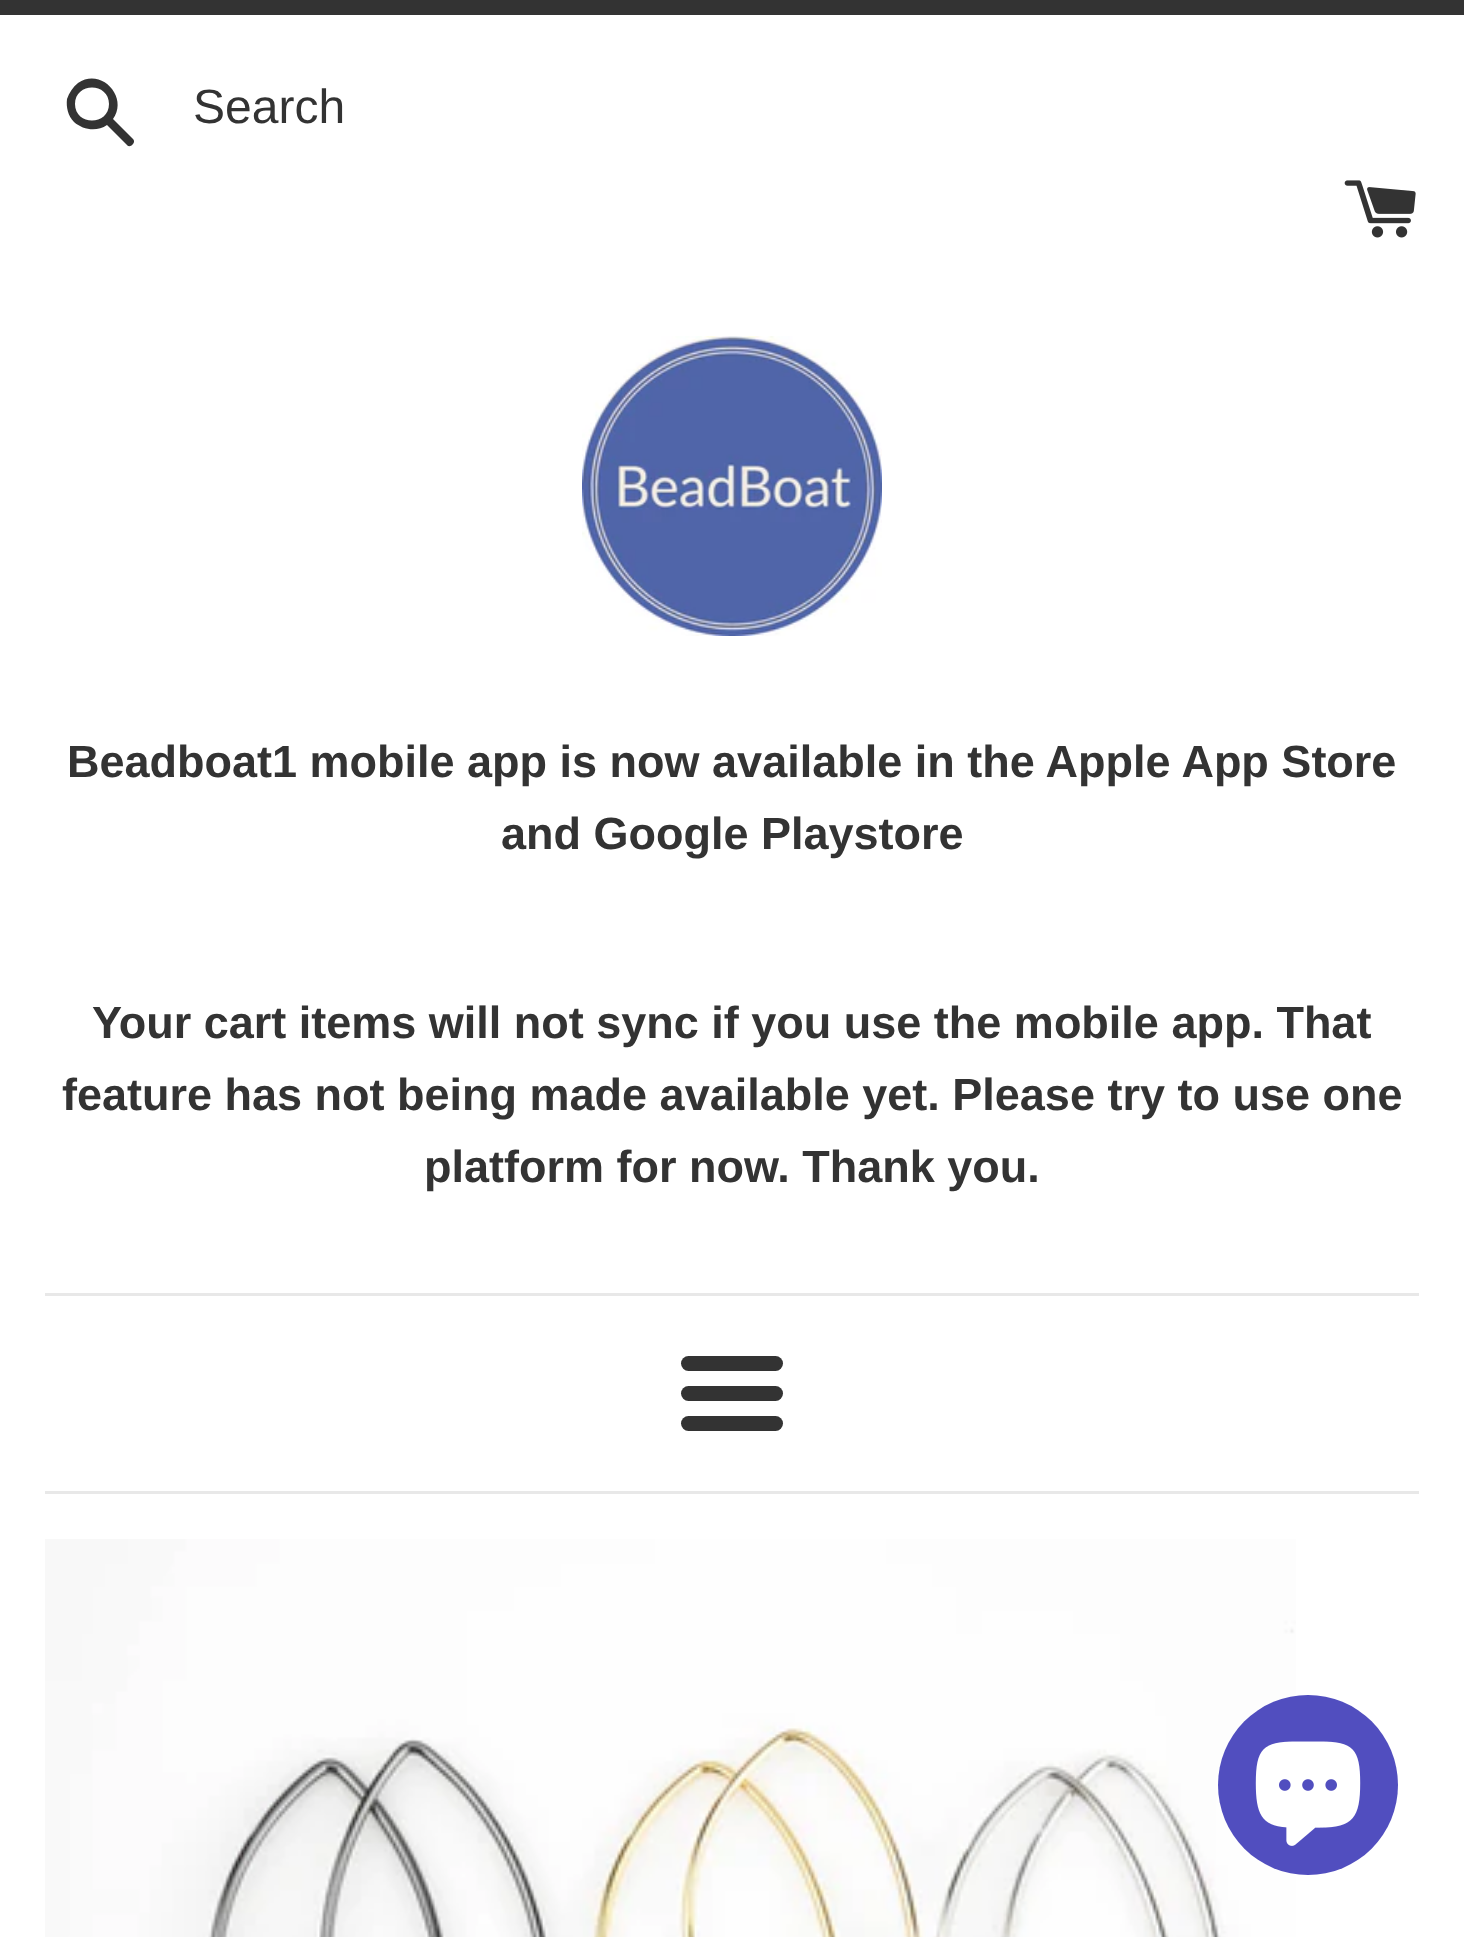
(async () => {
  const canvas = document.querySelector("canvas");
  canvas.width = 1464;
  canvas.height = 1937;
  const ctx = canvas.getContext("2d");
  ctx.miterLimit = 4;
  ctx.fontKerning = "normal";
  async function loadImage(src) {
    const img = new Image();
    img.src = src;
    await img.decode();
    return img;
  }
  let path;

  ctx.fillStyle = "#ffffff";
  ctx.fillRect(0, 0, 1464, 1937);
  ctx.fillStyle = "#333333";
  ctx.fillRect(0, 0, 1464, 15);
  path = new Path2D("M133 139L113 119C129 97 101 67 78 83C73 87 69 93 67 99C66 107 68 116 74 122C83 130 97 132 107 125L128 146C132 147 136 142 133 139ZM75 104C75 82 109 82 109 104C109 126 75 126 75 104Z");
  ctx.fill(path);
  ctx.drawImage(await loadImage("img/1.png"), 1344, 180, 72, 58);
  ctx.drawImage(await loadImage("img/2.png"), 582, 336, 300, 300);
  ctx.fillStyle = "#e8e8e8";
  ctx.fillRect(45, 1293, 1374, 3);
  ctx.fillStyle = "#333333";
  ctx.beginPath();
  ctx.roundRect(681, 1356, 102, 15, 7.5);
  ctx.fill();
  ctx.beginPath();
  ctx.roundRect(681, 1386, 102, 15, 7.5);
  ctx.fill();
  ctx.beginPath();
  ctx.roundRect(681, 1416, 102, 15, 7.5);
  ctx.fill();
  ctx.fillStyle = "#e8e8e8";
  ctx.fillRect(45, 1491, 1374, 3);
  ctx.drawImage(await loadImage("img/3.png"), 45, 1539, 1251, 398);
  ctx.fillStyle = "#514ebf";
  ctx.beginPath();
  ctx.arc(1308, 1785, 90, 0, Math.PI * 2);
  ctx.fill();
  ctx.drawImage(await loadImage("img/4.png"), 1255, 1741, 106, 105);
  ctx.font = "48px Liberation Sans";
  ctx.fillStyle = "#333333";
  ctx.fillText("Search", 193, 123);
  ctx.font = "bold 45px Liberation Sans";
  for (const [text, x, y] of [
    ["Beadboat1 mobile app is now available in the Apple App Store", 67, 777],
    ["and Google Playstore", 501, 849],
    ["Your cart items will not sync if you use the mobile app. That", 92, 1038],
    ["feature has not being made available yet. Please try to use one", 62, 1110],
    ["platform for now. Thank you.", 424, 1182],
  ]) {
    ctx.fillText(text, x, y);
  }
})();
